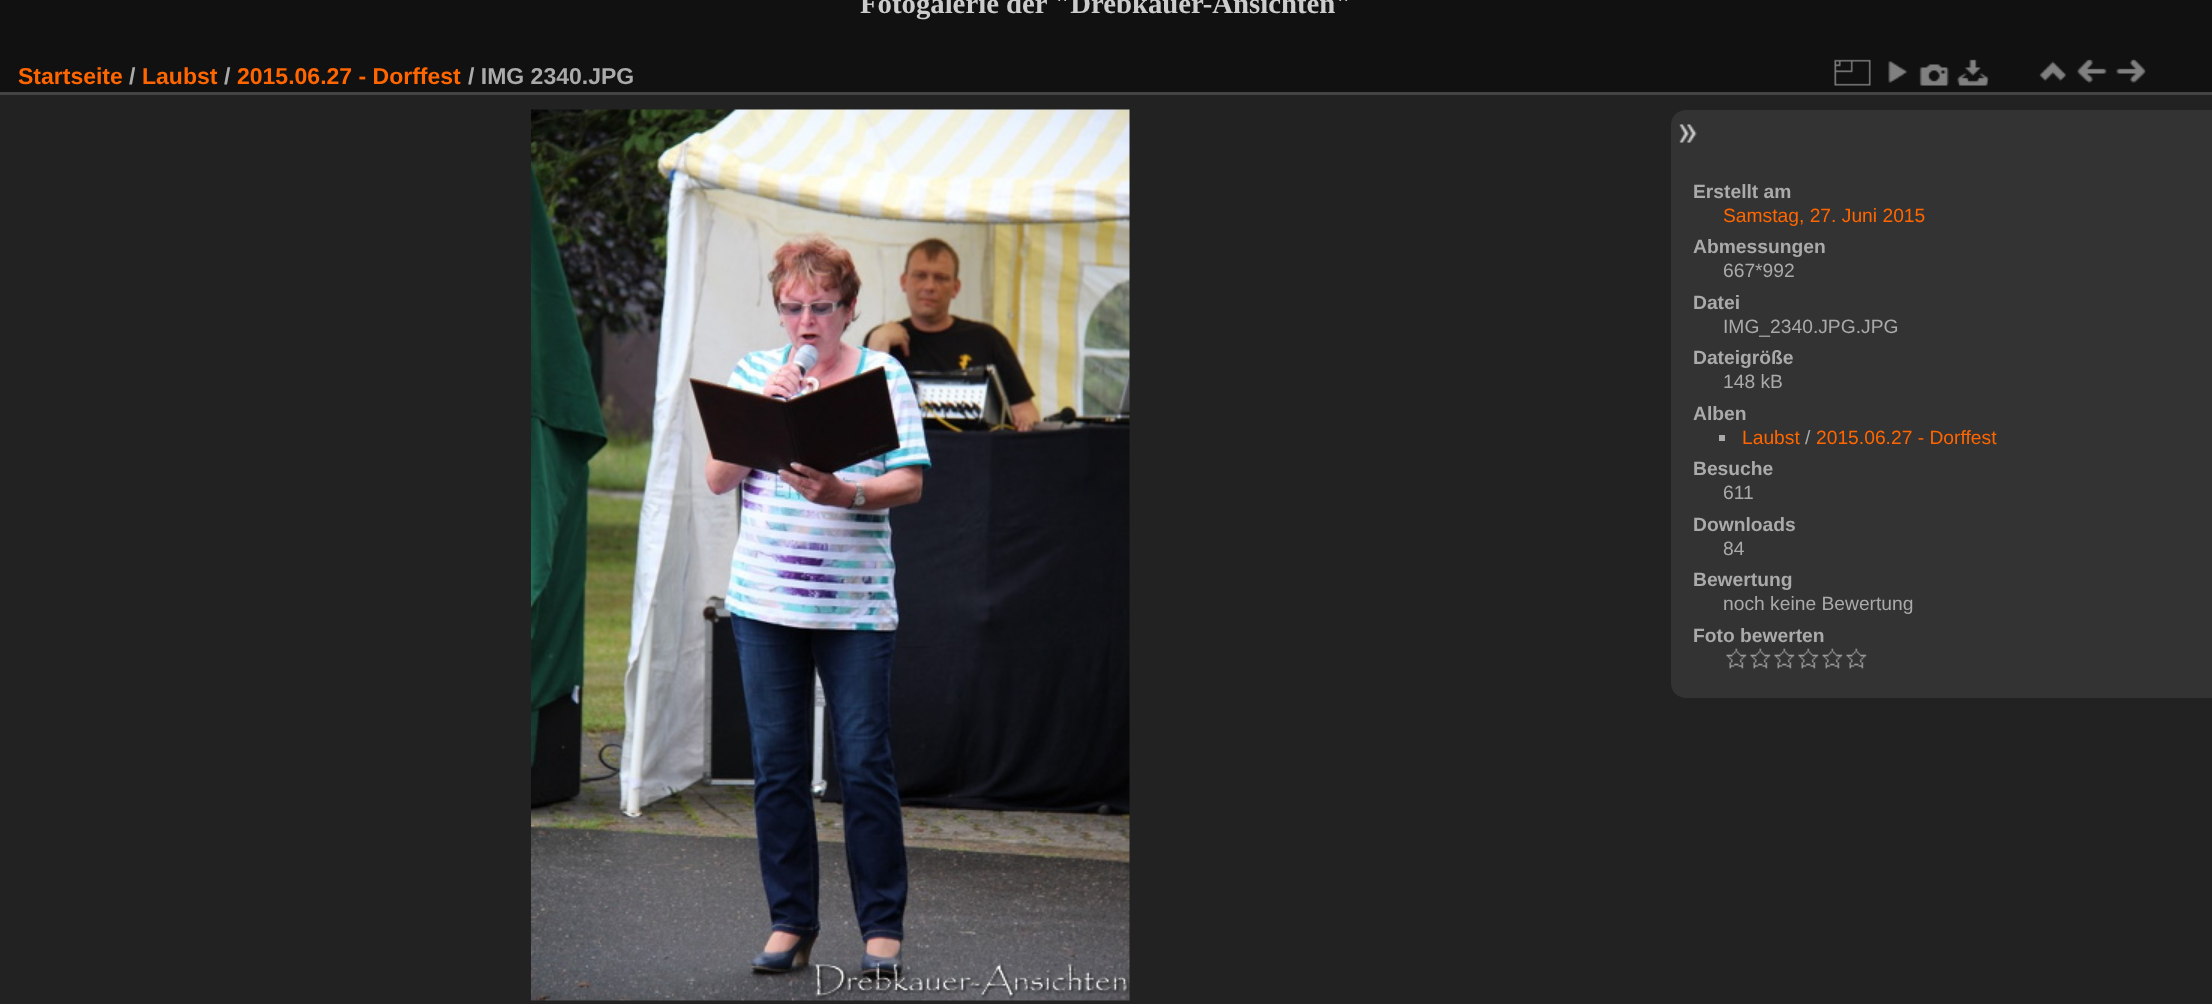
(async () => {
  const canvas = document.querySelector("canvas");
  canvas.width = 2212;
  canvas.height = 1004;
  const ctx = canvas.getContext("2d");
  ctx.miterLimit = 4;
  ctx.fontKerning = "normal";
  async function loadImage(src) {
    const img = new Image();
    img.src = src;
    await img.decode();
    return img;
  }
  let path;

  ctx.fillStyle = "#111111";
  ctx.fillRect(0, 0, 2212, 1004);
  ctx.fillStyle = "#222222";
  ctx.fillRect(0, 95, 2212, 909);
  ctx.fillStyle = "#444444";
  ctx.fillRect(0, 92, 2212, 3);
  ctx.drawImage(await loadImage("img/1.png"), 1834, 59, 37, 27);
  ctx.drawImage(await loadImage("img/2.png"), 1888, 61, 19, 22);
  ctx.drawImage(await loadImage("img/3.png"), 1919, 64, 30, 22);
  ctx.drawImage(await loadImage("img/4.png"), 1957, 59, 32, 27);
  ctx.drawImage(await loadImage("img/5.png"), 2039, 61, 27, 21);
  ctx.drawImage(await loadImage("img/6.png"), 2077, 59, 30, 24);
  ctx.drawImage(await loadImage("img/7.png"), 2116, 59, 30, 24);
  ctx.drawImage(await loadImage("img/8.png"), 531, 109, 599, 892);
  ctx.fillStyle = "#333333";
  path = new Path2D("M1686 110H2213V698H1686C1677.5 698 1671 691.5 1671 683V125C1671 116.5 1677.5 110 1686 110Z");
  ctx.fill(path);
  ctx.drawImage(await loadImage("img/9.png"), 1679, 124, 18, 19);
  ctx.fillStyle = "#aaaaaa";
  ctx.fillRect(1719, 435, 6, 6);
  ctx.drawImage(await loadImage("img/10.png"), 1726, 648, 21, 21);
  ctx.drawImage(await loadImage("img/10.png"), 1750, 648, 21, 21);
  ctx.drawImage(await loadImage("img/10.png"), 1774, 648, 21, 21);
  ctx.drawImage(await loadImage("img/10.png"), 1798, 648, 21, 21);
  ctx.drawImage(await loadImage("img/11.png"), 1822, 648, 21, 21);
  ctx.drawImage(await loadImage("img/10.png"), 1846, 648, 21, 21);
  ctx.font = "bold 28.75px Liberation Serif";
  ctx.fillStyle = "#cccccc";
  ctx.fillText("Fotogalerie der \"Drebkauer-Ansichten\"", 860, 13);
  ctx.font = "bold 23px Liberation Sans";
  ctx.fillStyle = "#ff6600";
  ctx.fillText("Startseite", 18, 84);
  ctx.fillStyle = "#aaaaaa";
  ctx.fillText("/", 129, 84);
  ctx.fillStyle = "#ff6600";
  ctx.fillText("Laubst", 142, 84);
  ctx.fillStyle = "#aaaaaa";
  ctx.fillText("/", 224, 84);
  ctx.fillStyle = "#ff6600";
  ctx.fillText("2015.06.27 - Dorffest", 237, 84);
  ctx.fillStyle = "#aaaaaa";
  ctx.fillText("/ IMG 2340.JPG", 468, 84);
  ctx.font = "bold 19.25px Liberation Sans";
  ctx.fillText("Erstellt am", 1693, 198);
  ctx.font = "19.25px Liberation Sans";
  ctx.fillStyle = "#ff6600";
  ctx.fillText("Samstag, 27. Juni 2015", 1723, 222);
  ctx.font = "bold 19.25px Liberation Sans";
  ctx.fillStyle = "#aaaaaa";
  ctx.fillText("Abmessungen", 1693, 253);
  ctx.font = "19.25px Liberation Sans";
  ctx.fillText("667*992", 1723, 277);
  ctx.font = "bold 19.25px Liberation Sans";
  ctx.fillText("Datei", 1693, 309);
  ctx.font = "19.25px Liberation Sans";
  ctx.fillText("IMG_2340.JPG.JPG", 1723, 333);
  ctx.font = "bold 19.25px Liberation Sans";
  ctx.fillText("Dateigröße", 1693, 364);
  ctx.font = "19.25px Liberation Sans";
  ctx.fillText("148 kB", 1723, 388);
  ctx.font = "bold 19.25px Liberation Sans";
  ctx.fillText("Alben", 1693, 420);
  ctx.font = "19.25px Liberation Sans";
  ctx.fillStyle = "#ff6600";
  ctx.fillText("Laubst", 1742, 444);
  ctx.fillStyle = "#aaaaaa";
  ctx.fillText("/", 1805, 444);
  ctx.fillStyle = "#ff6600";
  ctx.fillText("2015.06.27 - Dorffest", 1816, 444);
  ctx.font = "bold 19.25px Liberation Sans";
  ctx.fillStyle = "#aaaaaa";
  ctx.fillText("Besuche", 1693, 475);
  ctx.font = "19.25px Liberation Sans";
  ctx.fillText("611", 1723, 499);
  ctx.font = "bold 19.25px Liberation Sans";
  ctx.fillText("Downloads", 1693, 531);
  ctx.font = "19.25px Liberation Sans";
  ctx.fillText("84", 1723, 555);
  ctx.font = "bold 19.25px Liberation Sans";
  ctx.fillText("Bewertung", 1693, 586);
  ctx.font = "19.25px Liberation Sans";
  ctx.fillText("noch keine Bewertung", 1723, 610);
  ctx.font = "bold 19.25px Liberation Sans";
  ctx.fillText("Foto bewerten", 1693, 642);
})();
